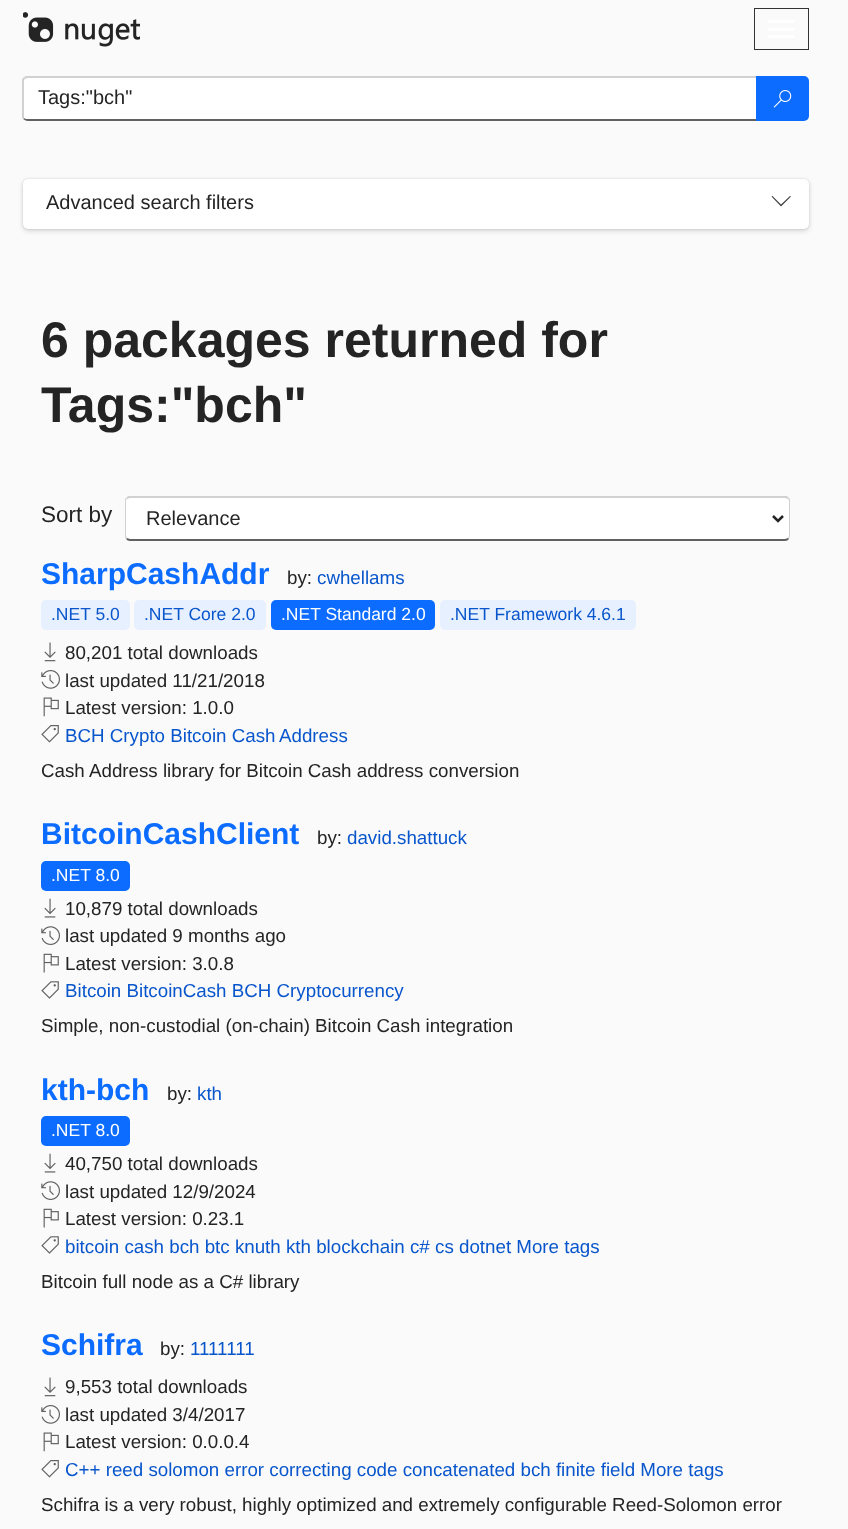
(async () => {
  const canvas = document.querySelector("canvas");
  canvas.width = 848;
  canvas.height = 1529;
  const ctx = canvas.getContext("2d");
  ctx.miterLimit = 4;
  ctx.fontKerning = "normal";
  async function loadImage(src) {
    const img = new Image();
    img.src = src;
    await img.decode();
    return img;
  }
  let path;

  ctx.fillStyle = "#fafafa";
  ctx.fillRect(0, 0, 848, 1529);
  ctx.drawImage(await loadImage("img/1.png"), 23, 12, 117, 35);
  ctx.strokeStyle = "#333333";
  ctx.strokeRect(754.5, 8.5, 54, 41);
  ctx.fillStyle = "#ffffff";
  ctx.beginPath();
  ctx.roundRect(768, 20, 27, 3, 1.5);
  ctx.fill();
  ctx.beginPath();
  ctx.roundRect(768, 28, 27, 3, 1.5);
  ctx.fill();
  ctx.beginPath();
  ctx.roundRect(768, 35, 27, 3, 1.5);
  ctx.fill();
  path = new Path2D("M28 78H756V119H28C25 119 24 118 24 116V81C24 79 25 78 28 78Z");
  ctx.fill(path);
  ctx.fillStyle = "#d1d1d1";
  path = new Path2D("M28 78L25 79L24 77L26 76H758L756 78Z");
  ctx.fill(path);
  ctx.fillStyle = "#616161";
  path = new Path2D("M757 121H28C26 121 25 120 23 119L24 118C25 119 26 119 28 119H756V118Z");
  ctx.fill(path);
  ctx.fillStyle = "#d1d1d1";
  path = new Path2D("M22 79L24 77L25 79L24 80V118L23 119L22 118Z");
  ctx.fill(path);
  ctx.fillStyle = "#0b6cff";
  ctx.beginPath();
  ctx.roundRect(756, 76, 53, 45, [0, 5, 5, 0]);
  ctx.fill();
  ctx.drawImage(await loadImage("img/2.png"), 773, 90, 19, 18);
  ctx.fillStyle = "rgba(0, 0, 0, 0.14)";
  ctx.filter = "blur(2.5px)";
  ctx.beginPath();
  ctx.roundRect(23, 181, 786, 50, 5);
  ctx.fill();
  ctx.filter = "none";
  ctx.fillStyle = "rgba(0, 0, 0, 0.12)";
  ctx.filter = "blur(1px)";
  ctx.beginPath();
  ctx.roundRect(23, 179, 786, 50, 5);
  ctx.fill();
  ctx.filter = "none";
  ctx.fillStyle = "#ffffff";
  ctx.beginPath();
  ctx.roundRect(23, 179, 786, 50, 5);
  ctx.fill();
  ctx.fillStyle = "#424242";
  path = new Path2D("M790 196L791 196.5L781 206.5L771.5 196.5L772.5 196L781 204.5Z");
  ctx.fill(path);
  ctx.fillStyle = "#ffffff";
  path = new Path2D("M130 498H785C787 498 789 499 789 501V536C789 538 787 539 785 539H130C128 539 126 538 126 536V501C126 499 128 498 130 498Z");
  ctx.fill(path);
  ctx.fillStyle = "#d1d1d1";
  path = new Path2D("M130 498L127 499L126 498L128 496H787L789 498L788 499L785 498Z");
  ctx.fill(path);
  path = new Path2D("M790 536V501C790 500 790 498 789 498L788 499L789 500V536L788 538L789 539Z");
  ctx.fill(path);
  ctx.fillStyle = "#616161";
  path = new Path2D("M789 539C788 540 787 541 785 541H130C128 541 127 540 126 539L127 538L130 539H785L788 538Z");
  ctx.fill(path);
  ctx.fillStyle = "#d1d1d1";
  path = new Path2D("M125 501V536C125 537 125 538 126 539L127 538L126 536V500L127 499L126 498C125 498 125 500 125 501Z");
  ctx.fill(path);
  path = new Path2D("M773 516L778 521L783 516");
  ctx.strokeStyle = "#242424";
  ctx.lineWidth = 2.5;
  ctx.stroke(path);
  ctx.fillStyle = "#e7f0ff";
  ctx.beginPath();
  ctx.roundRect(41, 600, 89, 30, 5);
  ctx.fill();
  ctx.beginPath();
  ctx.roundRect(134, 600, 132, 30, 5);
  ctx.fill();
  ctx.fillStyle = "#0b6cff";
  ctx.beginPath();
  ctx.roundRect(271, 600, 164, 30, 5);
  ctx.fill();
  ctx.fillStyle = "#e7f0ff";
  ctx.beginPath();
  ctx.roundRect(440, 600, 196, 30, 5);
  ctx.fill();
  ctx.drawImage(await loadImage("img/3.png"), 44, 642, 12, 20);
  ctx.drawImage(await loadImage("img/4.png"), 41, 670, 19, 19);
  ctx.drawImage(await loadImage("img/5.png"), 43, 697, 16, 20);
  ctx.drawImage(await loadImage("img/6.png"), 41, 725, 18, 18);
  ctx.fillStyle = "#0b6cff";
  ctx.beginPath();
  ctx.roundRect(41, 861, 89, 30, 5);
  ctx.fill();
  ctx.drawImage(await loadImage("img/7.png"), 44, 898, 12, 20);
  ctx.drawImage(await loadImage("img/8.png"), 41, 926, 19, 19);
  ctx.drawImage(await loadImage("img/9.png"), 43, 953, 16, 20);
  ctx.drawImage(await loadImage("img/10.png"), 41, 981, 18, 18);
  ctx.beginPath();
  ctx.roundRect(41, 1116, 89, 30, 5);
  ctx.fill();
  ctx.drawImage(await loadImage("img/7.png"), 44, 1153, 12, 20);
  ctx.drawImage(await loadImage("img/8.png"), 41, 1181, 19, 19);
  ctx.drawImage(await loadImage("img/9.png"), 43, 1208, 16, 20);
  ctx.drawImage(await loadImage("img/10.png"), 41, 1236, 18, 18);
  ctx.drawImage(await loadImage("img/3.png"), 44, 1377, 12, 20);
  ctx.drawImage(await loadImage("img/4.png"), 41, 1405, 19, 19);
  ctx.drawImage(await loadImage("img/5.png"), 43, 1432, 16, 20);
  ctx.drawImage(await loadImage("img/6.png"), 41, 1460, 18, 18);
  ctx.font = "20px Liberation Sans";
  ctx.fillStyle = "#242424";
  ctx.fillText("Tags:\"bch\"", 38, 104);
  ctx.fillText("Advanced search filters", 46, 209);
  ctx.font = "bold 50px Liberation Sans";
  ctx.fillText("6 packages returned for", 41, 357);
  ctx.fillText("Tags:\"bch\"", 41, 422);
  ctx.font = "22.5px Liberation Sans";
  ctx.fillText("Sort by", 41, 522);
  ctx.font = "20px Liberation Sans";
  ctx.fillText("Relevance", 146, 525);
  ctx.font = "bold 30px Liberation Sans";
  ctx.fillStyle = "#0b6cff";
  ctx.fillText("SharpCashAddr", 41, 584);
  ctx.font = "18.75px Liberation Sans";
  ctx.fillStyle = "#242424";
  ctx.fillText("by:", 287, 584);
  ctx.fillStyle = "#0956cc";
  ctx.fillText("cwhellams", 317, 584);
  ctx.font = "17.5px Liberation Sans";
  ctx.fillText(".NET 5.0", 51, 620);
  ctx.fillText(".NET Core 2.0", 144, 620);
  ctx.fillStyle = "#ffffff";
  ctx.fillText(".NET Standard 2.0", 281, 620);
  ctx.fillStyle = "#0956cc";
  ctx.fillText(".NET Framework 4.6.1", 450, 620);
  ctx.font = "18.75px Liberation Sans";
  ctx.fillStyle = "#242424";
  for (const [text, x, y] of [
    ["80,201 total downloads", 65, 659],
    ["last updated 11/21/2018", 65, 687],
    ["Latest version: 1.0.0", 65, 714],
  ]) {
    ctx.fillText(text, x, y);
  }
  ctx.fillStyle = "#0956cc";
  ctx.fillText("BCH Crypto Bitcoin Cash", 65, 742);
  ctx.fillText("Address", 279, 742);
  ctx.fillStyle = "#242424";
  ctx.fillText("Cash Address library for Bitcoin Cash address conversion", 41, 777);
  ctx.font = "bold 30px Liberation Sans";
  ctx.fillStyle = "#0b6cff";
  ctx.fillText("BitcoinCashClient", 41, 844);
  ctx.font = "18.75px Liberation Sans";
  ctx.fillStyle = "#242424";
  ctx.fillText("by:", 317, 844);
  ctx.fillStyle = "#0956cc";
  ctx.fillText("david.shattuck", 347, 844);
  ctx.font = "17.5px Liberation Sans";
  ctx.fillStyle = "#ffffff";
  ctx.fillText(".NET 8.0", 51, 881);
  ctx.font = "18.75px Liberation Sans";
  ctx.fillStyle = "#242424";
  for (const [text, x, y] of [
    ["10,879 total downloads", 65, 915],
    ["last updated 9 months ago", 65, 942],
    ["Latest version: 3.0.8", 65, 970],
  ]) {
    ctx.fillText(text, x, y);
  }
  ctx.fillStyle = "#0956cc";
  ctx.fillText("Bitcoin BitcoinCash BCH Cryptocurrency", 65, 997);
  ctx.fillStyle = "#242424";
  ctx.fillText("Simple, non-custodial (on-chain) Bitcoin Cash integration", 41, 1032);
  ctx.font = "bold 30px Liberation Sans";
  ctx.fillStyle = "#0b6cff";
  ctx.fillText("kth-bch", 41, 1100);
  ctx.font = "18.75px Liberation Sans";
  ctx.fillStyle = "#242424";
  ctx.fillText("by:", 167, 1100);
  ctx.fillStyle = "#0956cc";
  ctx.fillText("kth", 197, 1100);
  ctx.font = "17.5px Liberation Sans";
  ctx.fillStyle = "#ffffff";
  ctx.fillText(".NET 8.0", 51, 1136);
  ctx.font = "18.75px Liberation Sans";
  ctx.fillStyle = "#242424";
  for (const [text, x, y] of [
    ["40,750 total downloads", 65, 1170],
    ["last updated 12/9/2024", 65, 1198],
    ["Latest version: 0.23.1", 65, 1225],
  ]) {
    ctx.fillText(text, x, y);
  }
  ctx.fillStyle = "#0956cc";
  ctx.fillText("bitcoin cash bch btc knuth kth blockchain c# cs dotnet More tags", 65, 1253);
  ctx.fillStyle = "#242424";
  ctx.fillText("Bitcoin full node as a C# library", 41, 1288);
  ctx.font = "bold 30px Liberation Sans";
  ctx.fillStyle = "#0b6cff";
  ctx.fillText("Schifra", 41, 1355);
  ctx.font = "18.75px Liberation Sans";
  ctx.fillStyle = "#242424";
  ctx.fillText("by:", 160, 1355);
  ctx.fillStyle = "#0956cc";
  ctx.fillText("1111111", 190, 1355);
  ctx.fillStyle = "#242424";
  for (const [text, x, y] of [
    ["9,553 total downloads", 65, 1393],
    ["last updated 3/4/2017", 65, 1421],
    ["Latest version: 0.0.0.4", 65, 1448],
  ]) {
    ctx.fillText(text, x, y);
  }
  ctx.fillStyle = "#0956cc";
  ctx.fillText("C++ reed solomon error correcting code concatenated bch finite field More tags", 65, 1476);
  ctx.fillStyle = "#242424";
  ctx.fillText("Schifra is a very robust, highly optimized and extremely configurable Reed-Solomon error", 41, 1511);
})();
